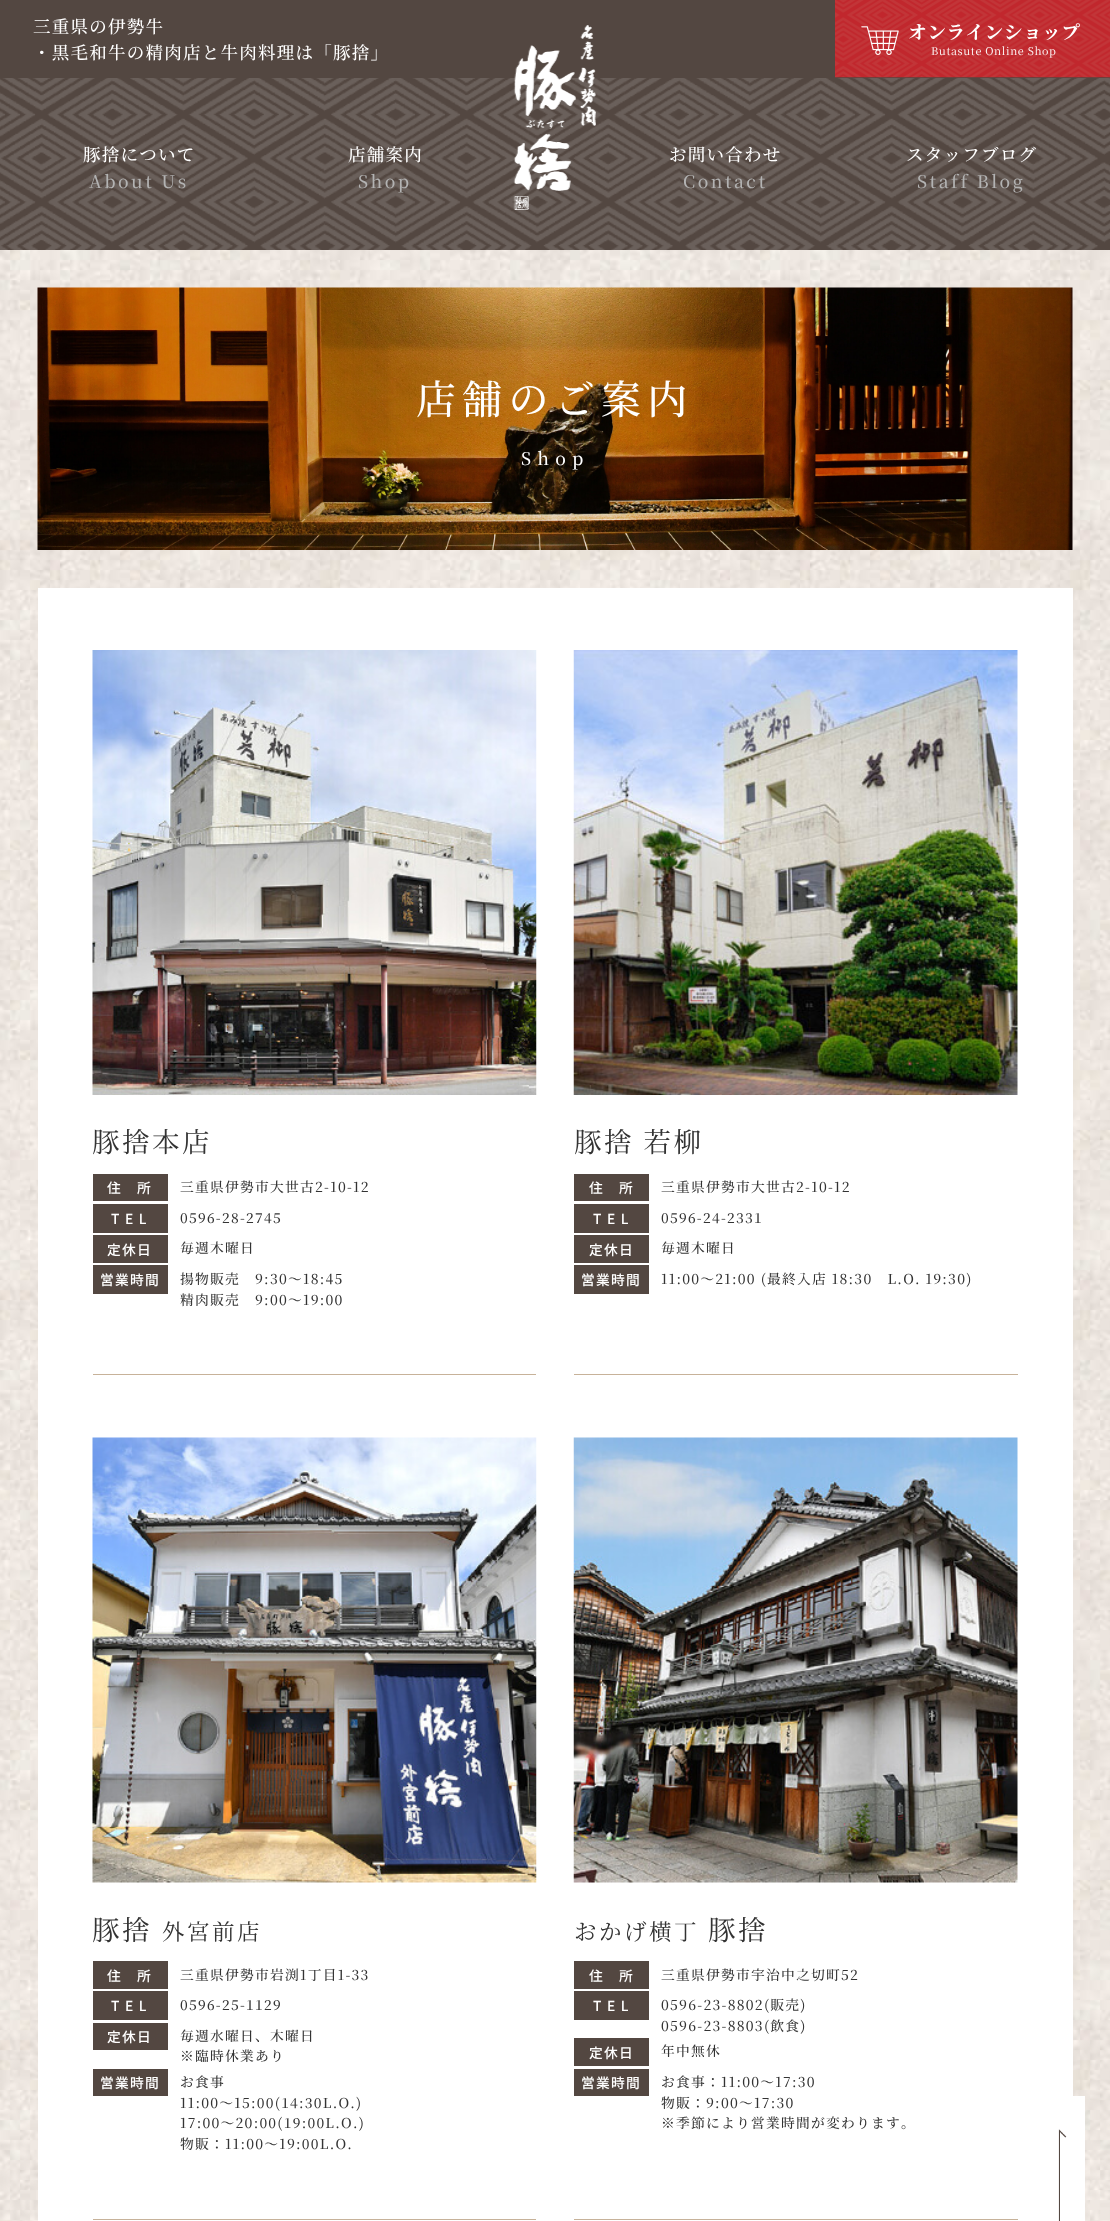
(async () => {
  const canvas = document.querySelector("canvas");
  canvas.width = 1110;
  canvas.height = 2221;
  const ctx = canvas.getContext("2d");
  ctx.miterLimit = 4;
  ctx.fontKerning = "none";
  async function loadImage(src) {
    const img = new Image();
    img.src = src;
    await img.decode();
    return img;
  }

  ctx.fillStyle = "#ffffff";
  ctx.fillRect(0, 0, 1110, 2221);
  ctx.drawImage(await loadImage("img/1.png"), 0, 250, 1110, 1971);
  ctx.fillStyle = "#534741";
  ctx.fillRect(0, 0, 1110, 250);
  ctx.drawImage(await loadImage("img/2.png"), 0, 78, 1110, 172);
  ctx.drawImage(await loadImage("img/3.png"), 513, 25, 83, 185);
  ctx.drawImage(await loadImage("img/4.png"), 835, 0, 275, 78);
  ctx.drawImage(await loadImage("img/5.png"), 861, 26, 38, 29);
  ctx.drawImage(await loadImage("img/6.png"), 37, 287, 1036, 263);
  ctx.fillStyle = "#ffffff";
  ctx.fillRect(38, 588, 1035, 1633);
  ctx.drawImage(await loadImage("img/7.png"), 92, 650, 445, 445);
  for (const [x, y, w, h, color] of [
    [93, 1174, 75, 27, "#534741"],
    [93, 1204, 75, 29, "#534741"],
    [93, 1235, 75, 28, "#534741"],
    [93, 1265, 75, 29, "#534741"],
  ]) {
    ctx.fillStyle = color;
    ctx.fillRect(x, y, w, h);
  }
  ctx.drawImage(await loadImage("img/8.png"), 573, 650, 445, 445);
  for (const [x, y, w, h, color] of [
    [574, 1174, 75, 27, "#534741"],
    [574, 1204, 75, 29, "#534741"],
    [574, 1235, 75, 28, "#534741"],
    [574, 1265, 75, 29, "#534741"],
    [93, 1374, 443, 1, "#c7b299"],
  ]) {
    ctx.fillStyle = color;
    ctx.fillRect(x, y, w, h);
  }
  ctx.drawImage(await loadImage("img/9.png"), 92, 1437, 445, 446);
  for (const [x, y, w, h, color] of [
    [93, 1961, 75, 28, "#534741"],
    [93, 1991, 75, 29, "#534741"],
    [93, 2023, 75, 27, "#534741"],
    [93, 2069, 75, 27, "#534741"],
    [574, 1374, 444, 1, "#c7b299"],
  ]) {
    ctx.fillStyle = color;
    ctx.fillRect(x, y, w, h);
  }
  ctx.drawImage(await loadImage("img/10.png"), 573, 1437, 445, 446);
  for (const [x, y, w, h, color] of [
    [574, 1961, 75, 28, "#534741"],
    [574, 1991, 75, 29, "#534741"],
    [574, 2038, 75, 28, "#534741"],
    [574, 2069, 75, 27, "#534741"],
    [93, 2219, 443, 1, "#c7b299"],
    [574, 2219, 444, 1, "#c7b299"],
    [1073, 2096, 12, 125, "#ffffff"],
  ]) {
    ctx.fillStyle = color;
    ctx.fillRect(x, y, w, h);
  }
  ctx.drawImage(await loadImage("img/11.png"), 1058, 2129, 9, 92);
  ctx.letterSpacing = "1.25px";
  ctx.font = "500 17.5px Noto Serif JP";
  for (const [text, x, y] of [
    ["三重県の伊勢牛", 33, 33],
    ["・黒毛和牛の精肉店と牛肉料理は「豚捨」", 33, 59],
    ["豚捨について", 83, 161],
  ]) {
    ctx.fillText(text, x, y);
  }
  ctx.letterSpacing = "2.5px";
  ctx.fillStyle = "#b3b3b3";
  ctx.fillText("About Us", 89, 188);
  ctx.letterSpacing = "1.25px";
  ctx.fillStyle = "#ffffff";
  ctx.fillText("店舗案内", 348, 161);
  ctx.letterSpacing = "2.5px";
  ctx.fillStyle = "#b3b3b3";
  ctx.fillText("Shop", 358, 188);
  ctx.letterSpacing = "1.25px";
  ctx.fillStyle = "#ffffff";
  ctx.fillText("お問い合わせ", 669, 161);
  ctx.letterSpacing = "2.5px";
  ctx.fillStyle = "#b3b3b3";
  ctx.fillText("Contact", 683, 188);
  ctx.letterSpacing = "1.25px";
  ctx.fillStyle = "#ffffff";
  ctx.fillText("スタッフブログ", 906, 161);
  ctx.letterSpacing = "2.5px";
  ctx.fillStyle = "#b3b3b3";
  ctx.fillText("Staff Blog", 917, 188);
  ctx.letterSpacing = "0.4px";
  ctx.font = "bold 18.75px Noto Serif JP";
  ctx.fillStyle = "#ffffff";
  ctx.fillText("オンラインショップ", 908, 39);
  ctx.letterSpacing = "0.6px";
  ctx.font = "10.75px Noto Serif JP";
  ctx.fillText("Butasute Online Shop", 931, 55);
  ctx.letterSpacing = "6.25px";
  ctx.font = "500 40px Noto Serif JP";
  ctx.fillText("店舗のご案内", 416, 414);
  ctx.font = "500 17.5px Noto Serif JP";
  ctx.fillText("Shop", 521, 465);
  ctx.letterSpacing = "2.5px";
  ctx.font = "27.5px Noto Serif JP";
  ctx.fillStyle = "#333333";
  ctx.fillText("豚捨本店", 92, 1152);
  ctx.letterSpacing = "1.25px";
  ctx.font = "500 13.75px Noto Sans JP";
  ctx.fillStyle = "#ffffff";
  ctx.fillText("住　所", 107, 1193);
  ctx.font = "500 13.75px Noto Serif JP";
  ctx.fillStyle = "#333333";
  ctx.fillText("三重県伊勢市大世古2-10-12", 180, 1192);
  ctx.font = "500 13.75px Noto Sans JP";
  ctx.fillStyle = "#ffffff";
  ctx.fillText("T E L", 111, 1224);
  ctx.font = "500 13.75px Noto Serif JP";
  ctx.fillStyle = "#333333";
  ctx.fillText("0596-28-2745", 180, 1223);
  ctx.font = "500 13.75px Noto Sans JP";
  ctx.fillStyle = "#ffffff";
  ctx.fillText("定休日", 107, 1255);
  ctx.font = "500 13.75px Noto Serif JP";
  ctx.fillStyle = "#333333";
  ctx.fillText("毎週木曜日", 180, 1253);
  ctx.font = "500 13.75px Noto Sans JP";
  ctx.fillStyle = "#ffffff";
  ctx.fillText("営業時間", 100, 1285);
  ctx.font = "500 13.75px Noto Serif JP";
  ctx.fillStyle = "#333333";
  ctx.fillText("揚物販売　9:30～18:45", 180, 1284);
  ctx.fillText("精肉販売　9:00～19:00", 180, 1305);
  ctx.letterSpacing = "2.5px";
  ctx.font = "27.5px Noto Serif JP";
  ctx.fillText("豚捨 若柳", 574, 1152);
  ctx.letterSpacing = "1.25px";
  ctx.font = "500 13.75px Noto Sans JP";
  ctx.fillStyle = "#ffffff";
  ctx.fillText("住　所", 589, 1193);
  ctx.font = "500 13.75px Noto Serif JP";
  ctx.fillStyle = "#333333";
  ctx.fillText("三重県伊勢市大世古2-10-12", 661, 1192);
  ctx.font = "500 13.75px Noto Sans JP";
  ctx.fillStyle = "#ffffff";
  ctx.fillText("T E L", 593, 1224);
  ctx.font = "500 13.75px Noto Serif JP";
  ctx.fillStyle = "#333333";
  ctx.fillText("0596-24-2331", 661, 1223);
  ctx.font = "500 13.75px Noto Sans JP";
  ctx.fillStyle = "#ffffff";
  ctx.fillText("定休日", 589, 1255);
  ctx.font = "500 13.75px Noto Serif JP";
  ctx.fillStyle = "#333333";
  ctx.fillText("毎週木曜日", 661, 1253);
  ctx.font = "500 13.75px Noto Sans JP";
  ctx.fillStyle = "#ffffff";
  ctx.fillText("営業時間", 581, 1285);
  ctx.font = "500 13.75px Noto Serif JP";
  ctx.fillStyle = "#333333";
  ctx.fillText("11:00〜21:00 (最終入店 18:30　L.O. 19:30)", 661, 1284);
  ctx.letterSpacing = "2.5px";
  ctx.font = "27.5px Noto Serif JP";
  ctx.fillText("豚捨", 92, 1940);
  ctx.font = "22.5px Noto Serif JP";
  ctx.fillText("外宮前店", 162, 1940);
  ctx.letterSpacing = "1.25px";
  ctx.font = "500 13.75px Noto Sans JP";
  ctx.fillStyle = "#ffffff";
  ctx.fillText("住　所", 107, 1981);
  ctx.font = "500 13.75px Noto Serif JP";
  ctx.fillStyle = "#333333";
  ctx.fillText("三重県伊勢市岩渕1丁目1-33", 180, 1980);
  ctx.font = "500 13.75px Noto Sans JP";
  ctx.fillStyle = "#ffffff";
  ctx.fillText("T E L", 111, 2011);
  ctx.font = "500 13.75px Noto Serif JP";
  ctx.fillStyle = "#333333";
  ctx.fillText("0596-25-1129", 180, 2010);
  ctx.font = "500 13.75px Noto Sans JP";
  ctx.fillStyle = "#ffffff";
  ctx.fillText("定休日", 107, 2042);
  ctx.font = "500 13.75px Noto Serif JP";
  ctx.fillStyle = "#333333";
  ctx.fillText("毎週水曜日、木曜日", 180, 2041);
  ctx.fillText("※臨時休業あり", 180, 2061);
  ctx.font = "500 13.75px Noto Sans JP";
  ctx.fillStyle = "#ffffff";
  ctx.fillText("営業時間", 100, 2088);
  ctx.font = "500 13.75px Noto Serif JP";
  ctx.fillStyle = "#333333";
  for (const [text, x, y] of [
    ["お食事", 180, 2087],
    ["11:00〜15:00(14:30L.O.)", 180, 2108],
    ["17:00〜20:00(19:00L.O.)", 180, 2128],
    ["物販：11:00〜19:00L.O.", 180, 2149],
  ]) {
    ctx.fillText(text, x, y);
  }
  ctx.letterSpacing = "2.5px";
  ctx.font = "22.5px Noto Serif JP";
  ctx.fillText("おかげ横丁", 574, 1940);
  ctx.font = "27.5px Noto Serif JP";
  ctx.fillText("豚捨", 708, 1940);
  ctx.letterSpacing = "1.25px";
  ctx.font = "500 13.75px Noto Sans JP";
  ctx.fillStyle = "#ffffff";
  ctx.fillText("住　所", 589, 1981);
  ctx.font = "500 13.75px Noto Serif JP";
  ctx.fillStyle = "#333333";
  ctx.fillText("三重県伊勢市宇治中之切町52", 661, 1980);
  ctx.font = "500 13.75px Noto Sans JP";
  ctx.fillStyle = "#ffffff";
  ctx.fillText("T E L", 593, 2011);
  ctx.font = "500 13.75px Noto Serif JP";
  ctx.fillStyle = "#333333";
  ctx.fillText("0596-23-8802(販売)", 661, 2010);
  ctx.fillText("0596-23-8803(飲食)", 661, 2031);
  ctx.font = "500 13.75px Noto Sans JP";
  ctx.fillStyle = "#ffffff";
  ctx.fillText("定休日", 589, 2058);
  ctx.font = "500 13.75px Noto Serif JP";
  ctx.fillStyle = "#333333";
  ctx.fillText("年中無休", 661, 2056);
  ctx.font = "500 13.75px Noto Sans JP";
  ctx.fillStyle = "#ffffff";
  ctx.fillText("営業時間", 581, 2088);
  ctx.font = "500 13.75px Noto Serif JP";
  ctx.fillStyle = "#333333";
  for (const [text, x, y] of [
    ["お食事：11:00〜17:30", 661, 2087],
    ["物販：9:00〜17:30", 661, 2108],
    ["※季節により営業時間が変わります。", 661, 2128],
  ]) {
    ctx.fillText(text, x, y);
  }
})();
